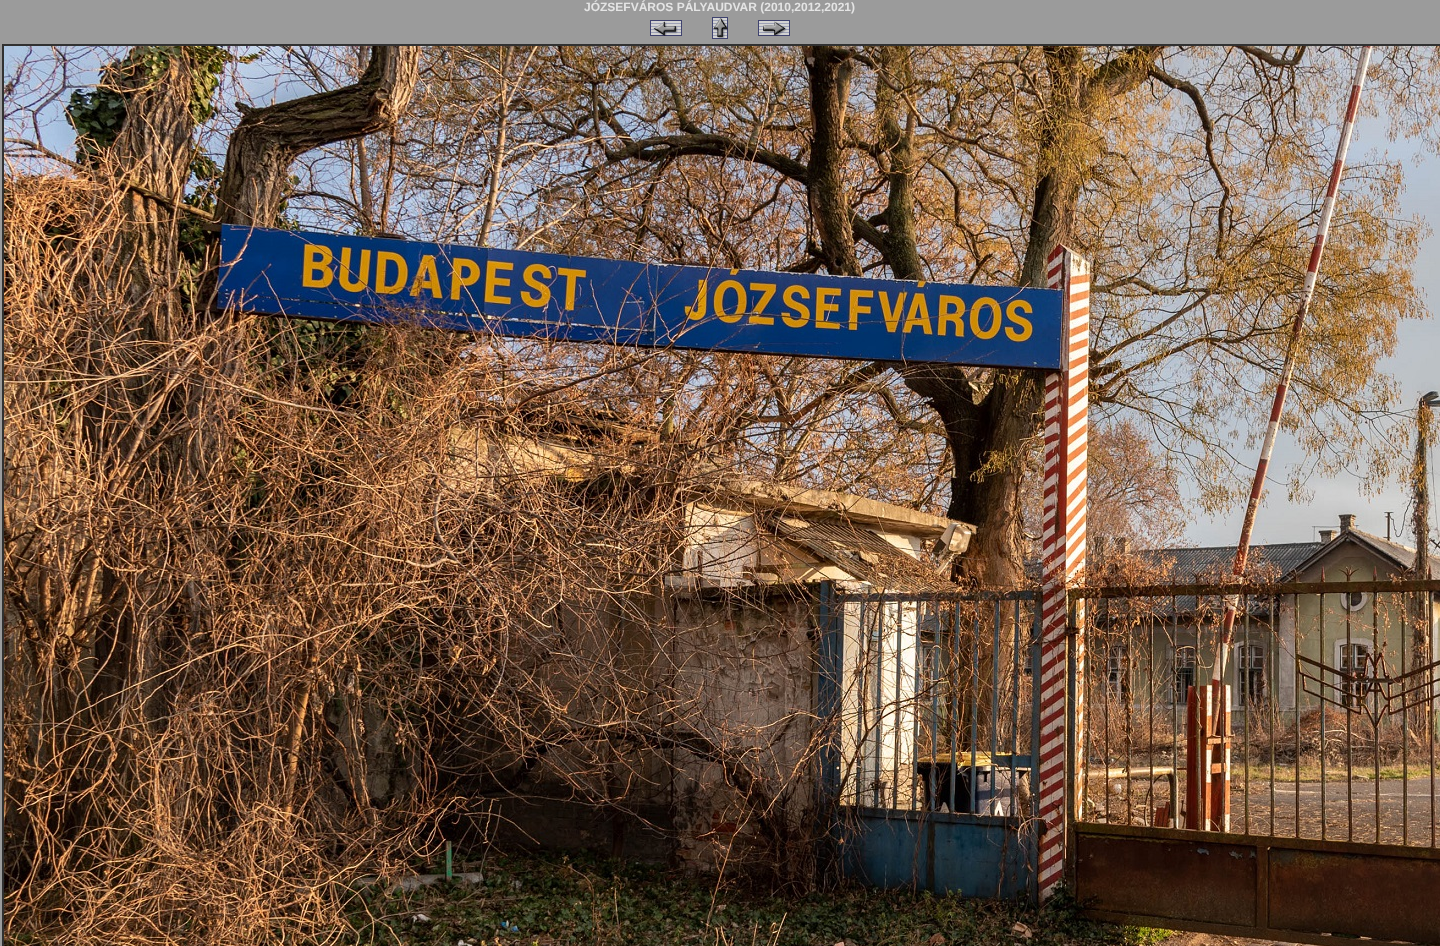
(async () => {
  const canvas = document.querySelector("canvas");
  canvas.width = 1440;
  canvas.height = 946;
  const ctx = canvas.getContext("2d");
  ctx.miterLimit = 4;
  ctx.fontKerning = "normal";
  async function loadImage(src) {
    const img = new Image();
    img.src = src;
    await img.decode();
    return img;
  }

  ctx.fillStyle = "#9b9b9b";
  ctx.fillRect(0, 0, 1440, 946);
  ctx.drawImage(await loadImage("img/1.png"), 650, 20, 32, 16);
  ctx.drawImage(await loadImage("img/2.png"), 712, 17, 16, 22);
  ctx.drawImage(await loadImage("img/3.png"), 758, 20, 32, 16);
  ctx.fillStyle = "#313131";
  ctx.fillRect(2, 44, 1438, 902);
  ctx.drawImage(await loadImage("img/4.png"), 4, 46, 1436, 900);
  ctx.font = "bold 12px Liberation Sans";
  ctx.fillStyle = "#e4e4e4";
  ctx.fillText("JÓZSEFVÁROS PÁLYAUDVAR (2010,2012,2021)", 584, 11);
})();
